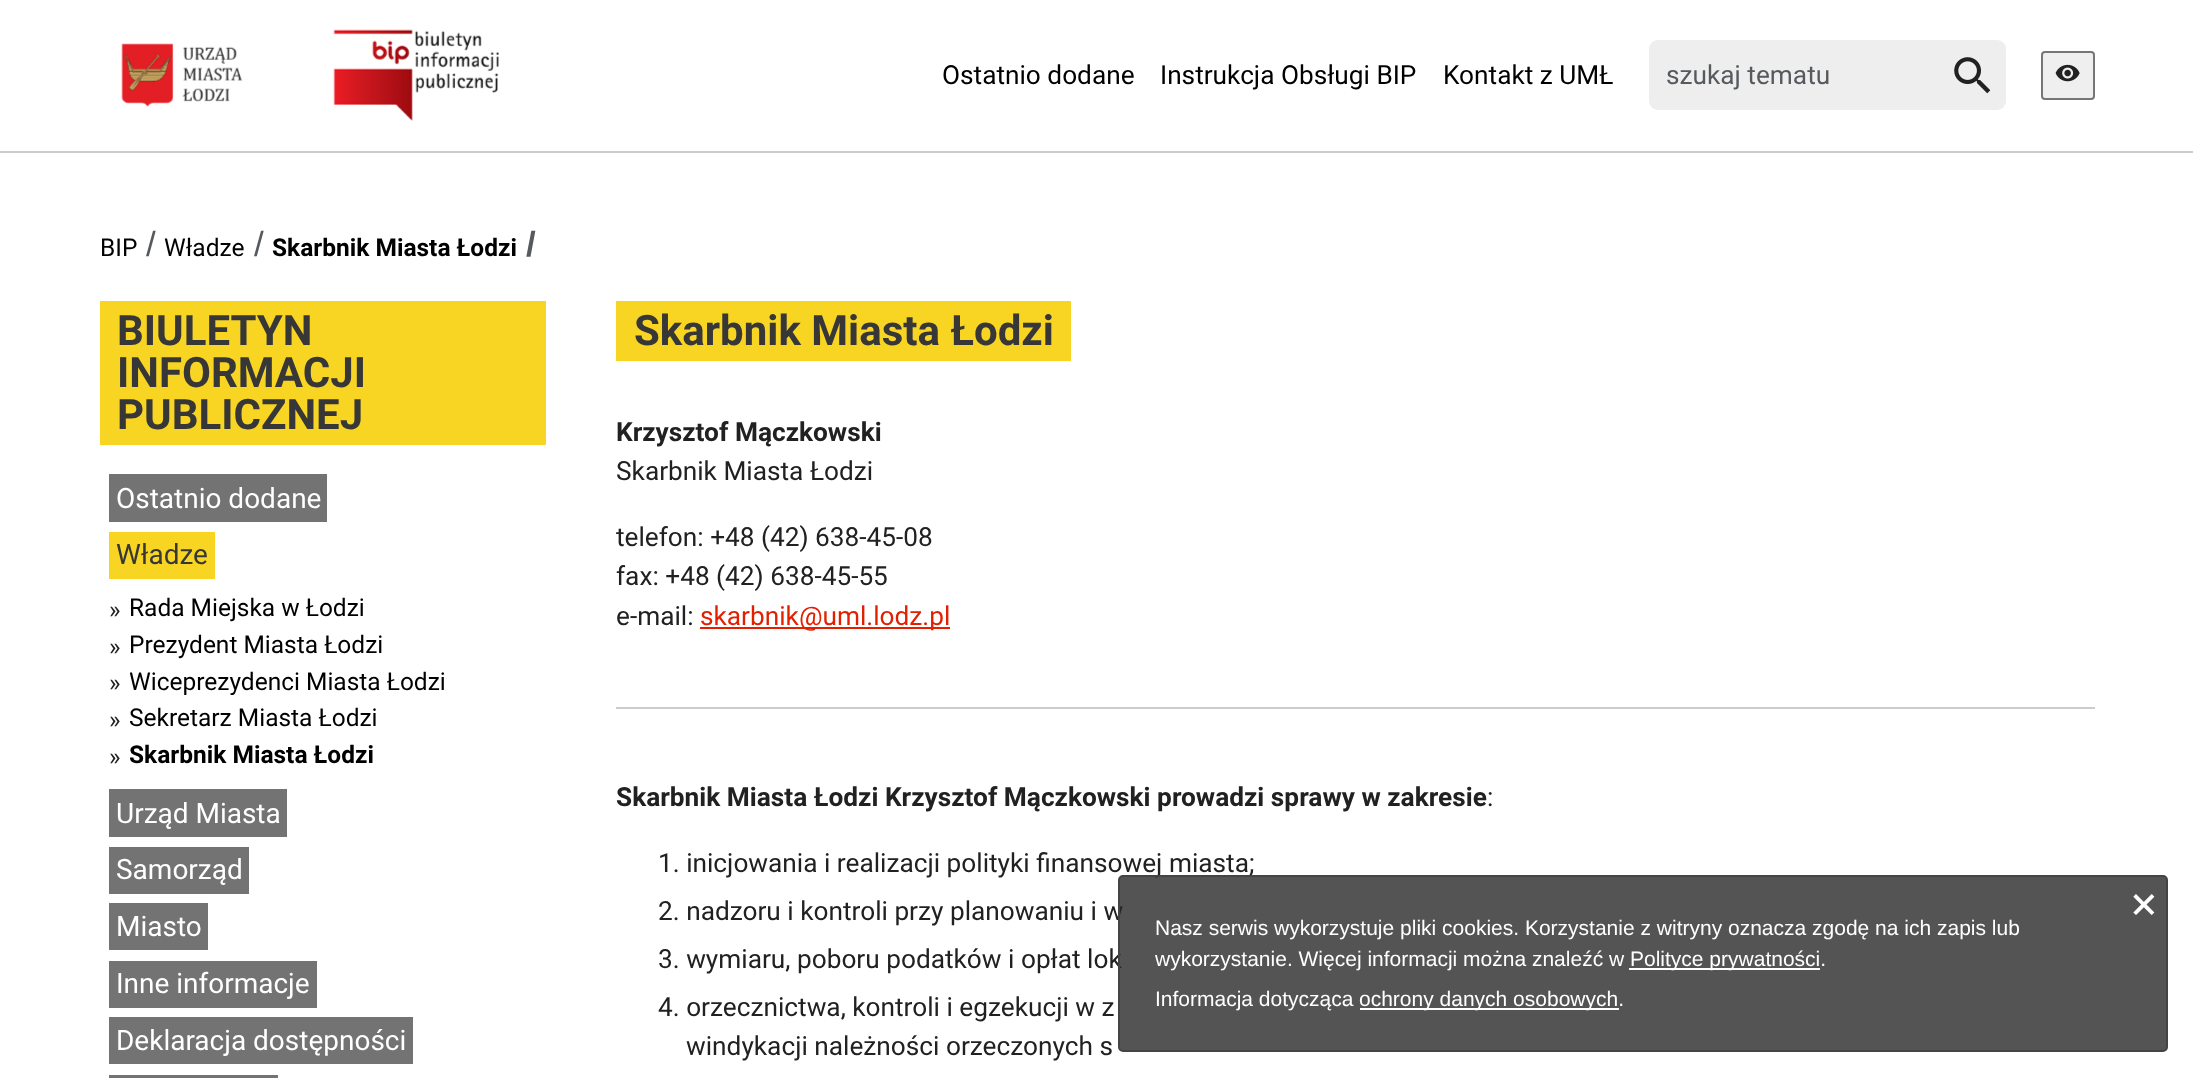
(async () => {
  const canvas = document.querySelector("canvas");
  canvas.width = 2193;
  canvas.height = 1078;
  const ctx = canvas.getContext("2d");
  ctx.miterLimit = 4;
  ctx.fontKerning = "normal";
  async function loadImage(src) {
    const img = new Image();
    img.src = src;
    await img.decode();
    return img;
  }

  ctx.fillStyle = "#ffffff";
  ctx.fillRect(0, 0, 2193, 1078);
  ctx.fillStyle = "#cccccc";
  ctx.fillRect(0, 151, 2193, 2);
  ctx.drawImage(await loadImage("img/1.png"), 121, 43, 122, 64);
  ctx.drawImage(await loadImage("img/2.png"), 333, 29, 166, 92);
  ctx.fillStyle = "#eeeeee";
  ctx.beginPath();
  ctx.roundRect(1649, 40, 290, 70, [9, 0, 0, 9]);
  ctx.fill();
  ctx.beginPath();
  ctx.roundRect(1939, 40, 67, 70, [0, 9, 9, 0]);
  ctx.fill();
  ctx.drawImage(await loadImage("img/3.png"), 1954, 57, 37, 37);
  ctx.fillStyle = "#efefef";
  ctx.beginPath();
  ctx.roundRect(2042, 52, 52, 47, 3);
  ctx.fill();
  ctx.strokeStyle = "#767676";
  ctx.lineWidth = 2;
  ctx.stroke();
  ctx.drawImage(await loadImage("img/4.png"), 2055, 64, 25, 18);
  for (const [x, y, w, h, color] of [
    [100, 301, 446, 144, "#f8d523"],
    [109, 474, 218, 48, "#737373"],
    [109, 532, 106, 47, "#f8d523"],
    [109, 789, 178, 48, "#737373"],
    [109, 847, 140, 47, "#737373"],
    [109, 903, 99, 47, "#737373"],
    [109, 961, 208, 47, "#737373"],
    [109, 1017, 304, 47, "#737373"],
    [109, 1075, 169, 3, "#737373"],
    [616, 301, 455, 60, "#f8d523"],
    [700, 627, 250, 2, "#e22000"],
    [616, 707, 1479, 2, "#cccccc"],
  ]) {
    ctx.fillStyle = color;
    ctx.fillRect(x, y, w, h);
  }
  ctx.font = "26.25px Roboto";
  ctx.fillStyle = "#000000";
  for (const [text, x, y] of [
    ["Ostatnio dodane", 942, 84],
    ["Instrukcja Obsługi BIP", 1160, 84],
    ["Kontakt z UMŁ", 1443, 84],
  ]) {
    ctx.fillText(text, x, y);
  }
  ctx.fillStyle = "#565a5e";
  ctx.fillText("szukaj tematu", 1666, 84);
  ctx.font = "24.5px Roboto";
  ctx.fillStyle = "#000000";
  ctx.fillText("BIP", 100, 256);
  ctx.font = "35px Liberation Sans";
  ctx.fillStyle = "#565a5e";
  ctx.fillText("/", 146, 256);
  ctx.font = "24.5px Roboto";
  ctx.fillStyle = "#000000";
  ctx.fillText("Władze", 164, 256);
  ctx.font = "35px Liberation Sans";
  ctx.fillStyle = "#565a5e";
  ctx.fillText("/", 254, 256);
  ctx.font = "bold 24.5px Roboto";
  ctx.fillStyle = "#000000";
  ctx.fillText("Skarbnik Miasta Łodzi", 272, 256);
  ctx.font = "bold 35px Liberation Sans";
  ctx.fillStyle = "#565a5e";
  ctx.fillText("/", 526, 256);
  ctx.font = "bold 42px Roboto";
  ctx.fillStyle = "#373737";
  for (const [text, x, y] of [
    ["BIULETYN", 117, 345],
    ["INFORMACJI", 117, 387],
    ["PUBLICZNEJ", 117, 429],
  ]) {
    ctx.fillText(text, x, y);
  }
  ctx.font = "28px Roboto";
  ctx.fillStyle = "#ffffff";
  ctx.fillText("Ostatnio dodane", 116, 508);
  ctx.fillStyle = "#373737";
  ctx.fillText("Władze", 116, 564);
  ctx.font = "24.5px Roboto";
  ctx.fillStyle = "#212121";
  ctx.fillText("»", 109, 618);
  ctx.fillStyle = "#000000";
  ctx.fillText("Rada Miejska w Łodzi", 129, 616);
  ctx.fillStyle = "#212121";
  ctx.fillText("»", 109, 655);
  ctx.fillStyle = "#000000";
  ctx.fillText("Prezydent Miasta Łodzi", 129, 653);
  ctx.fillStyle = "#212121";
  ctx.fillText("»", 109, 691);
  ctx.save();
  ctx.beginPath();
  ctx.rect(130, 667, 407, 28);
  ctx.clip();
  ctx.fillStyle = "#000000";
  ctx.fillText("Wiceprezydenci Miasta Łodzi", 129, 690);
  ctx.restore();
  ctx.fillText("»", 109, 728);
  ctx.fillStyle = "#000000";
  ctx.fillText("Sekretarz Miasta Łodzi", 129, 726);
  ctx.fillStyle = "#212121";
  ctx.fillText("»", 109, 765);
  ctx.save();
  ctx.beginPath();
  ctx.rect(130, 740, 407, 28);
  ctx.clip();
  ctx.font = "bold 24.5px Roboto";
  ctx.fillStyle = "#000000";
  ctx.fillText("Skarbnik Miasta Łodzi", 129, 763);
  ctx.restore();
  ctx.font = "28px Roboto";
  ctx.fillStyle = "#ffffff";
  for (const [text, x, y] of [
    ["Urząd Miasta", 116, 823],
    ["Samorząd", 116, 879],
    ["Miasto", 116, 936],
    ["Inne informacje", 116, 993],
    ["Deklaracja dostępności", 116, 1050],
  ]) {
    ctx.fillText(text, x, y);
  }
  ctx.font = "bold 42px Roboto";
  ctx.fillStyle = "#373737";
  ctx.fillText("Skarbnik Miasta Łodzi", 634, 345);
  ctx.font = "bold 26.25px Roboto";
  ctx.fillStyle = "#212121";
  ctx.fillText("Krzysztof Mączkowski", 616, 441);
  ctx.font = "26.25px Roboto";
  for (const [text, x, y] of [
    ["Skarbnik Miasta Łodzi", 616, 480],
    ["telefon: +48 (42) 638-45-08", 616, 546],
    ["fax: +48 (42) 638-45-55", 616, 585],
    ["e-mail:", 616, 625],
  ]) {
    ctx.fillText(text, x, y);
  }
  ctx.fillStyle = "#e22000";
  ctx.fillText("skarbnik@uml.lodz.pl", 700, 625);
  ctx.font = "bold 26.25px Roboto";
  ctx.fillStyle = "#212121";
  ctx.fillText("Skarbnik Miasta Łodzi Krzysztof Mączkowski prowadzi sprawy w zakresie", 616, 806);
  ctx.font = "26.25px Roboto";
  for (const [text, x, y] of [
    [":", 1487, 806],
    ["1. inicjowania i realizacji polityki finansowej miasta;", 658, 872],
    ["2. nadzoru i kontroli przy planowaniu i w", 658, 920],
    ["3. wymiaru, poboru podatków i opłat lok", 658, 968],
    ["4. orzecznictwa, kontroli i egzekucji w z", 658, 1016],
    ["windykacji należności orzeczonych s", 686, 1055],
  ]) {
    ctx.fillText(text, x, y);
  }
  ctx.fillStyle = "rgba(41, 41, 41, 0.8)";
  ctx.beginPath();
  ctx.roundRect(1119, 876, 1048, 175, 4);
  ctx.fill();
  ctx.strokeStyle = "#444444";
  ctx.stroke();
  ctx.font = "46px DejaVu Sans Mono";
  ctx.fillStyle = "#ffffff";
  ctx.fillText("×", 2130, 919);
  ctx.font = "21px Liberation Sans";
  ctx.fillText("Nasz serwis wykorzystuje pliki cookies. Korzystanie z witryny oznacza zgodę na ich zapis lub", 1155, 935);
  ctx.fillText("wykorzystanie. Więcej informacji można znaleźć w", 1155, 966);
  ctx.fillRect(1629, 968, 191, 2);
  ctx.fillText("Polityce prywatności.", 1630, 966);
  ctx.fillText("Informacja dotycząca", 1155, 1006);
  ctx.fillRect(1360, 1008, 259, 2);
  ctx.fillText("ochrony danych osobowych.", 1359, 1006);
})();
